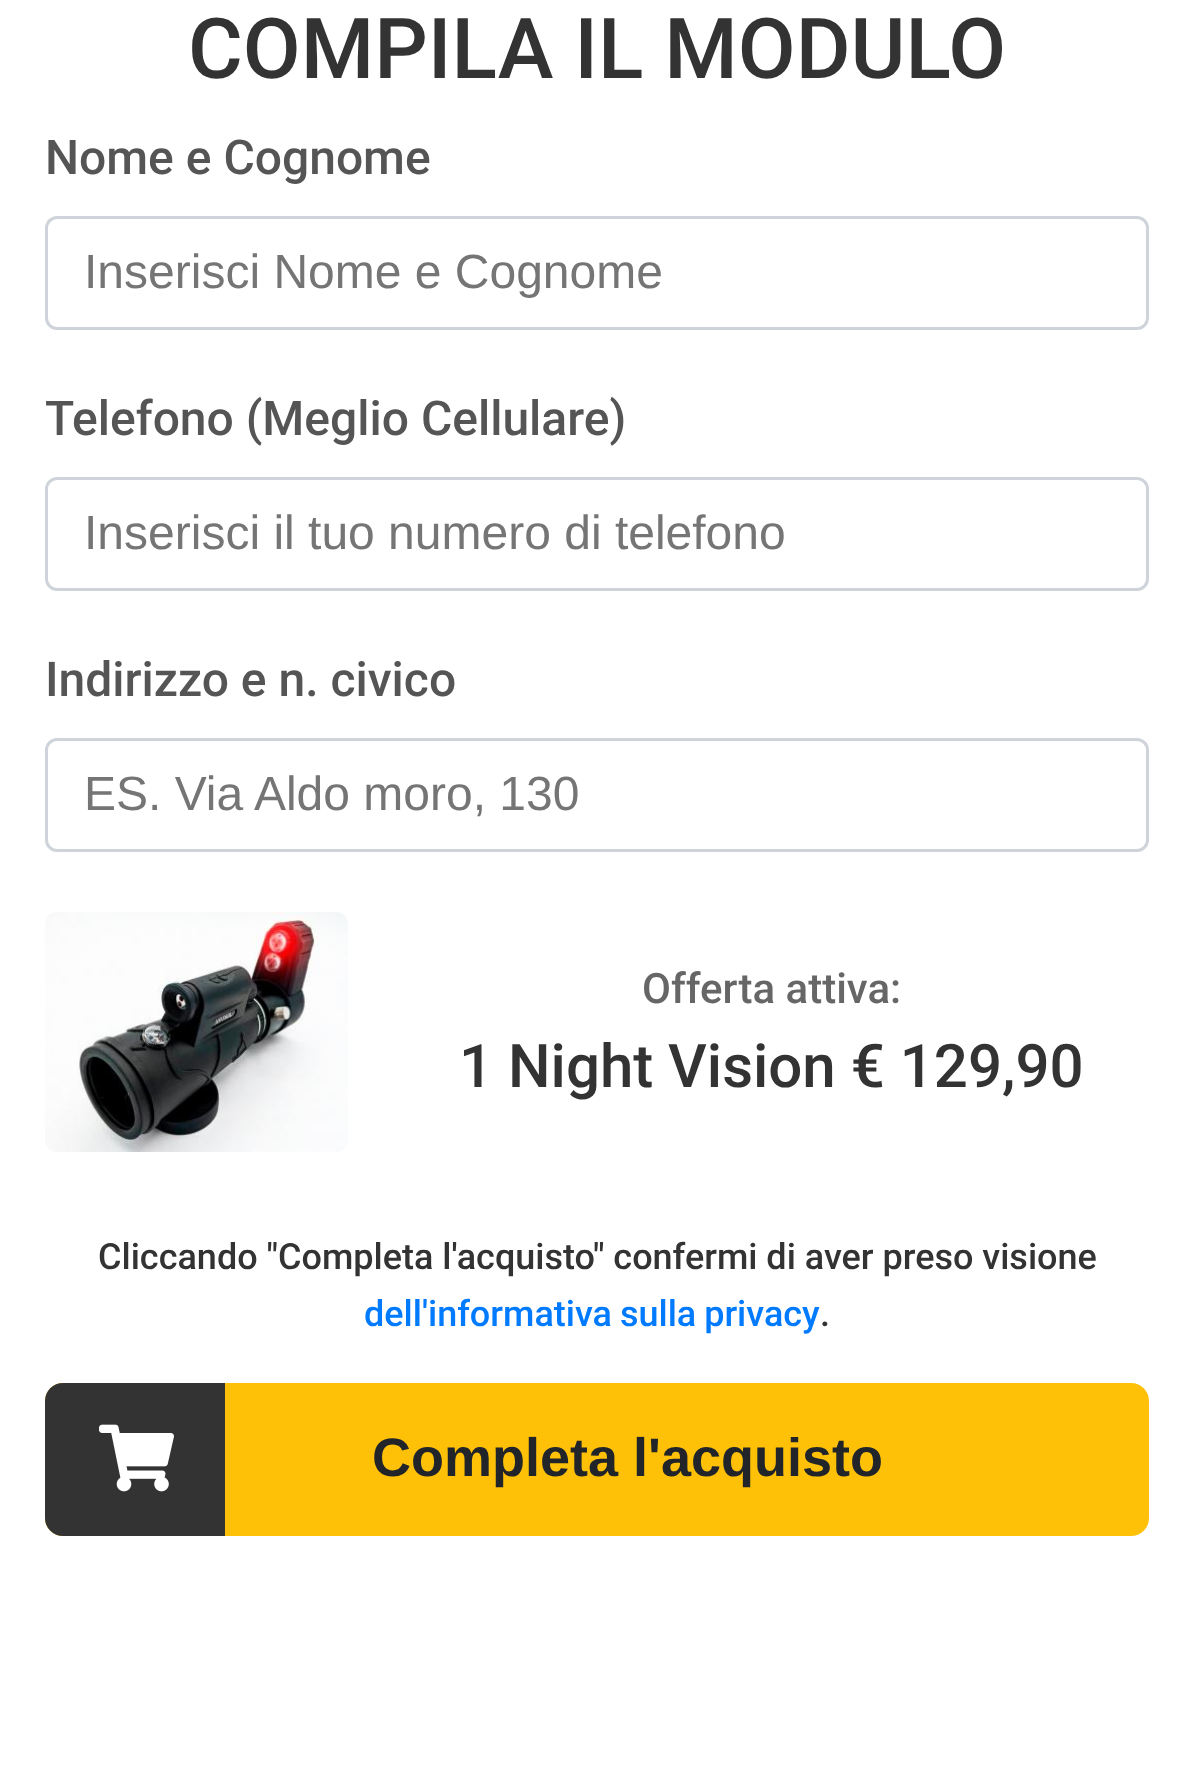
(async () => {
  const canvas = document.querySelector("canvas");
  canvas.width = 1193;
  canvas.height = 1787;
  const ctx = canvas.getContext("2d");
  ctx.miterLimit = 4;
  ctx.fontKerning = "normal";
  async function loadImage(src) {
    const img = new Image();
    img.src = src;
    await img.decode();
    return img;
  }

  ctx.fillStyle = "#ffffff";
  ctx.fillRect(0, 0, 1193, 1787);
  ctx.beginPath();
  ctx.roundRect(46.5, 217.5, 1101, 111, 10.5);
  ctx.strokeStyle = "#ced4da";
  ctx.lineWidth = 3;
  ctx.stroke();
  ctx.beginPath();
  ctx.roundRect(46.5, 478.5, 1101, 111, 10.5);
  ctx.stroke();
  ctx.beginPath();
  ctx.roundRect(46.5, 739.5, 1101, 111, 10.5);
  ctx.stroke();
  ctx.drawImage(await loadImage("img/1.png"), 45, 912, 303, 240);
  ctx.fillStyle = "#ffc107";
  ctx.beginPath();
  ctx.roundRect(45, 1383, 1104, 153, 18);
  ctx.fill();
  ctx.fillStyle = "#333333";
  ctx.beginPath();
  ctx.roundRect(45, 1383, 180, 153, [18, 0, 0, 18]);
  ctx.fill();
  ctx.drawImage(await loadImage("img/2.png"), 99, 1424, 75, 68);
  ctx.font = "500 84px Roboto";
  ctx.fillText("COMPILA IL MODULO", 188, 78);
  ctx.font = "500 48px Roboto";
  ctx.fillStyle = "#555555";
  ctx.fillText("Nome e Cognome", 45, 174);
  ctx.font = "48px Liberation Sans";
  ctx.fillStyle = "#757575";
  ctx.fillText("Inserisci Nome e Cognome", 84, 288);
  ctx.font = "500 48px Roboto";
  ctx.fillStyle = "#555555";
  ctx.fillText("Telefono (Meglio Cellulare)", 45, 435);
  ctx.font = "48px Liberation Sans";
  ctx.fillStyle = "#757575";
  ctx.fillText("Inserisci il tuo numero di telefono", 84, 549);
  ctx.font = "500 48px Roboto";
  ctx.fillStyle = "#555555";
  ctx.fillText("Indirizzo e n. civico", 45, 696);
  ctx.font = "48px Liberation Sans";
  ctx.fillStyle = "#757575";
  ctx.fillText("ES. Via Aldo moro, 130", 84, 810);
  ctx.font = "500 42px Roboto";
  ctx.fillStyle = "#666666";
  ctx.fillText("Offerta attiva:", 642, 1003);
  ctx.font = "500 60px Roboto";
  ctx.fillStyle = "#333333";
  ctx.fillText("1 Night Vision € 129,90", 459, 1087);
  ctx.font = "500 36px Roboto";
  ctx.fillText("Cliccando \"Completa l'acquisto\" confermi di aver preso visione", 98, 1269);
  ctx.wordSpacing = "-1px";
  ctx.fillStyle = "#007bff";
  ctx.fillText("dell'informativa sulla privacy", 364, 1326);
  ctx.wordSpacing = "0px";
  ctx.fillStyle = "#333333";
  ctx.fillText(".", 820, 1326);
  ctx.font = "bold 54px Liberation Sans";
  ctx.fillStyle = "#212529";
  ctx.fillText("Completa l'acquisto", 372, 1476);
})();
